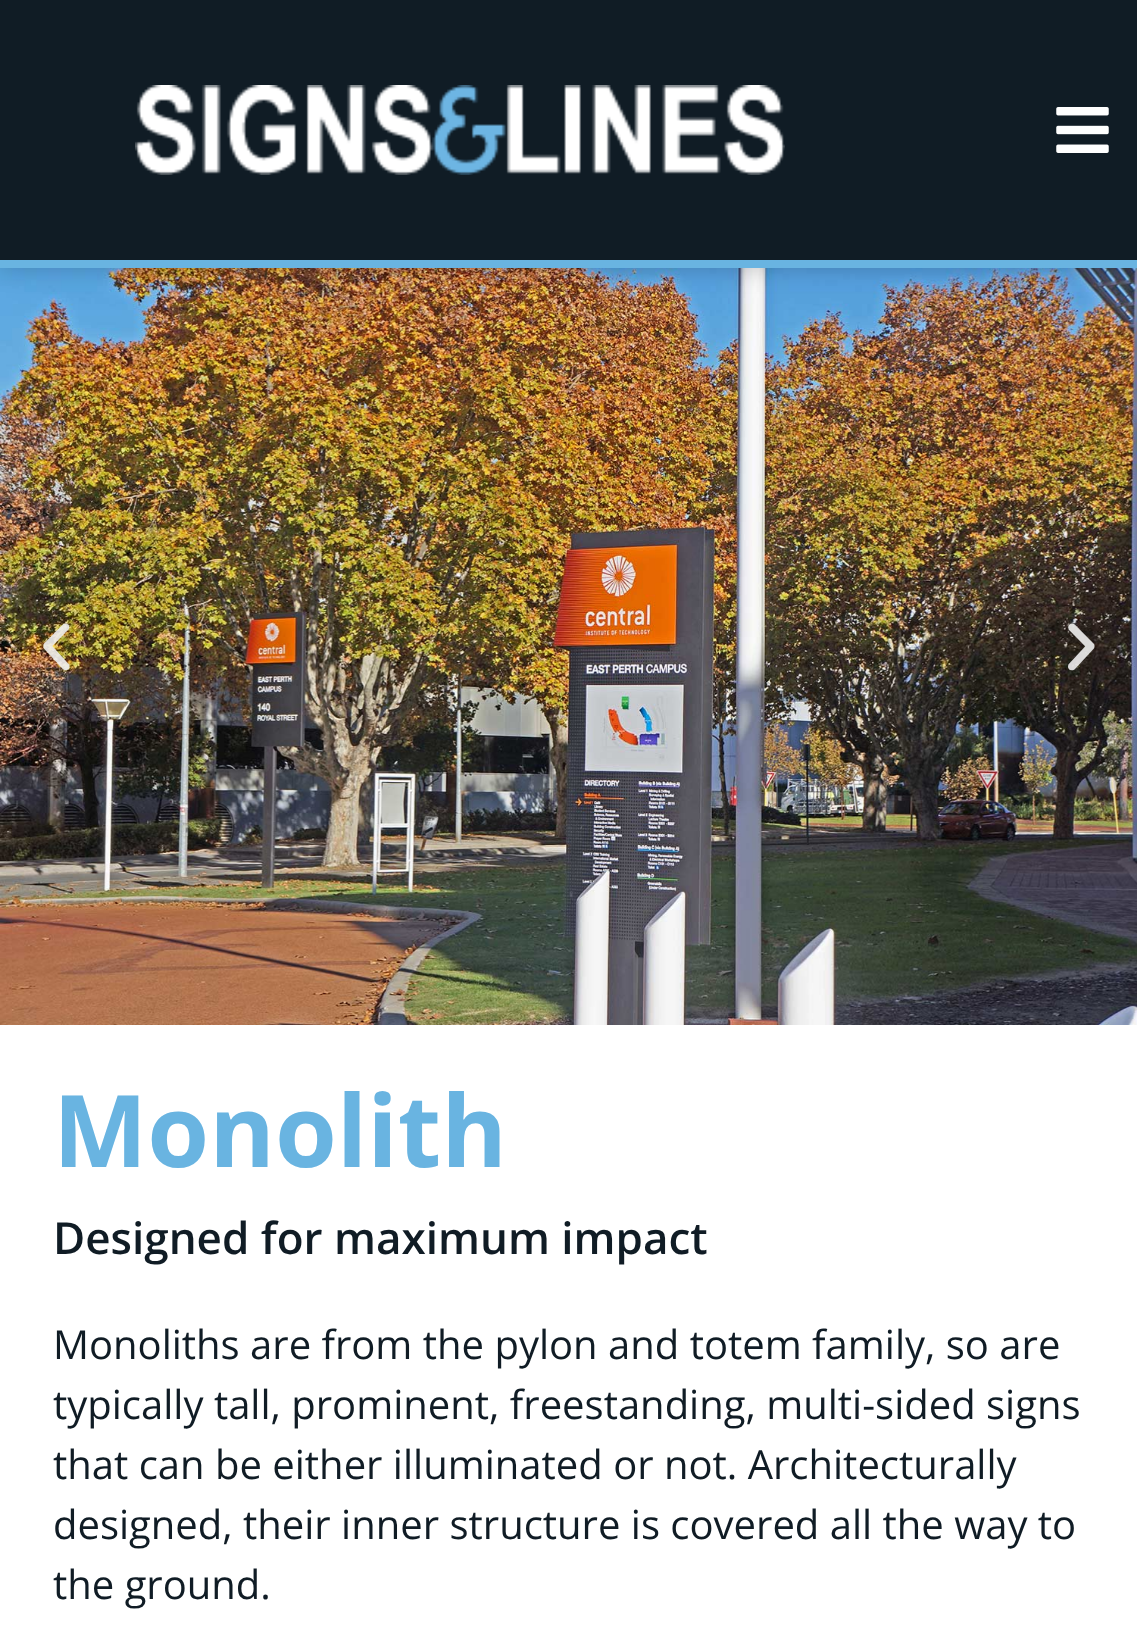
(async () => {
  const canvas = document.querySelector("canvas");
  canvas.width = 1137;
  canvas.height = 1629;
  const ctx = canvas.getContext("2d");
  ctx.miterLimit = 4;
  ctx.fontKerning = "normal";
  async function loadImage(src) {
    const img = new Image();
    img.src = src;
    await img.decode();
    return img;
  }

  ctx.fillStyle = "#ffffff";
  ctx.fillRect(0, 0, 1137, 1629);
  ctx.drawImage(await loadImage("img/3.png"), 0, 268, 1137, 757);
  ctx.fillStyle = "rgba(0, 0, 0, 0.22)";
  ctx.filter = "blur(12.5px)";
  ctx.beginPath();
  ctx.rect(0, 0, 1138, 268);
  ctx.fill();
  ctx.filter = "none";
  ctx.fillStyle = "#101c25";
  ctx.fillRect(0, 0, 1137, 260);
  ctx.fillStyle = "#69b4e1";
  ctx.fillRect(0, 260, 1137, 8);
  ctx.drawImage(await loadImage("img/1.png"), 135, 85, 650, 90);
  ctx.drawImage(await loadImage("img/2.png"), 1056, 107, 53, 46);
  ctx.drawImage(await loadImage("img/4.png"), 43, 623, 27, 48);
  ctx.drawImage(await loadImage("img/5.png"), 1068, 623, 27, 48);
  ctx.font = "bold 100px Open Sans";
  ctx.fillText("Monolith", 53, 1167);
  ctx.font = "600 44px Open Sans";
  ctx.fillStyle = "#101c25";
  ctx.fillText("Designed for maximum impact", 53, 1254);
  ctx.font = "40px Open Sans";
  for (const [text, x, y] of [
    ["Monoliths are from the pylon and totem family, so are", 53, 1359],
    ["typically tall, prominent, freestanding, multi-sided signs", 53, 1419],
    ["that can be either illuminated or not. Architecturally", 53, 1479],
    ["designed, their inner structure is covered all the way to", 53, 1539],
    ["the ground.", 53, 1599],
  ]) {
    ctx.fillText(text, x, y);
  }
})();
